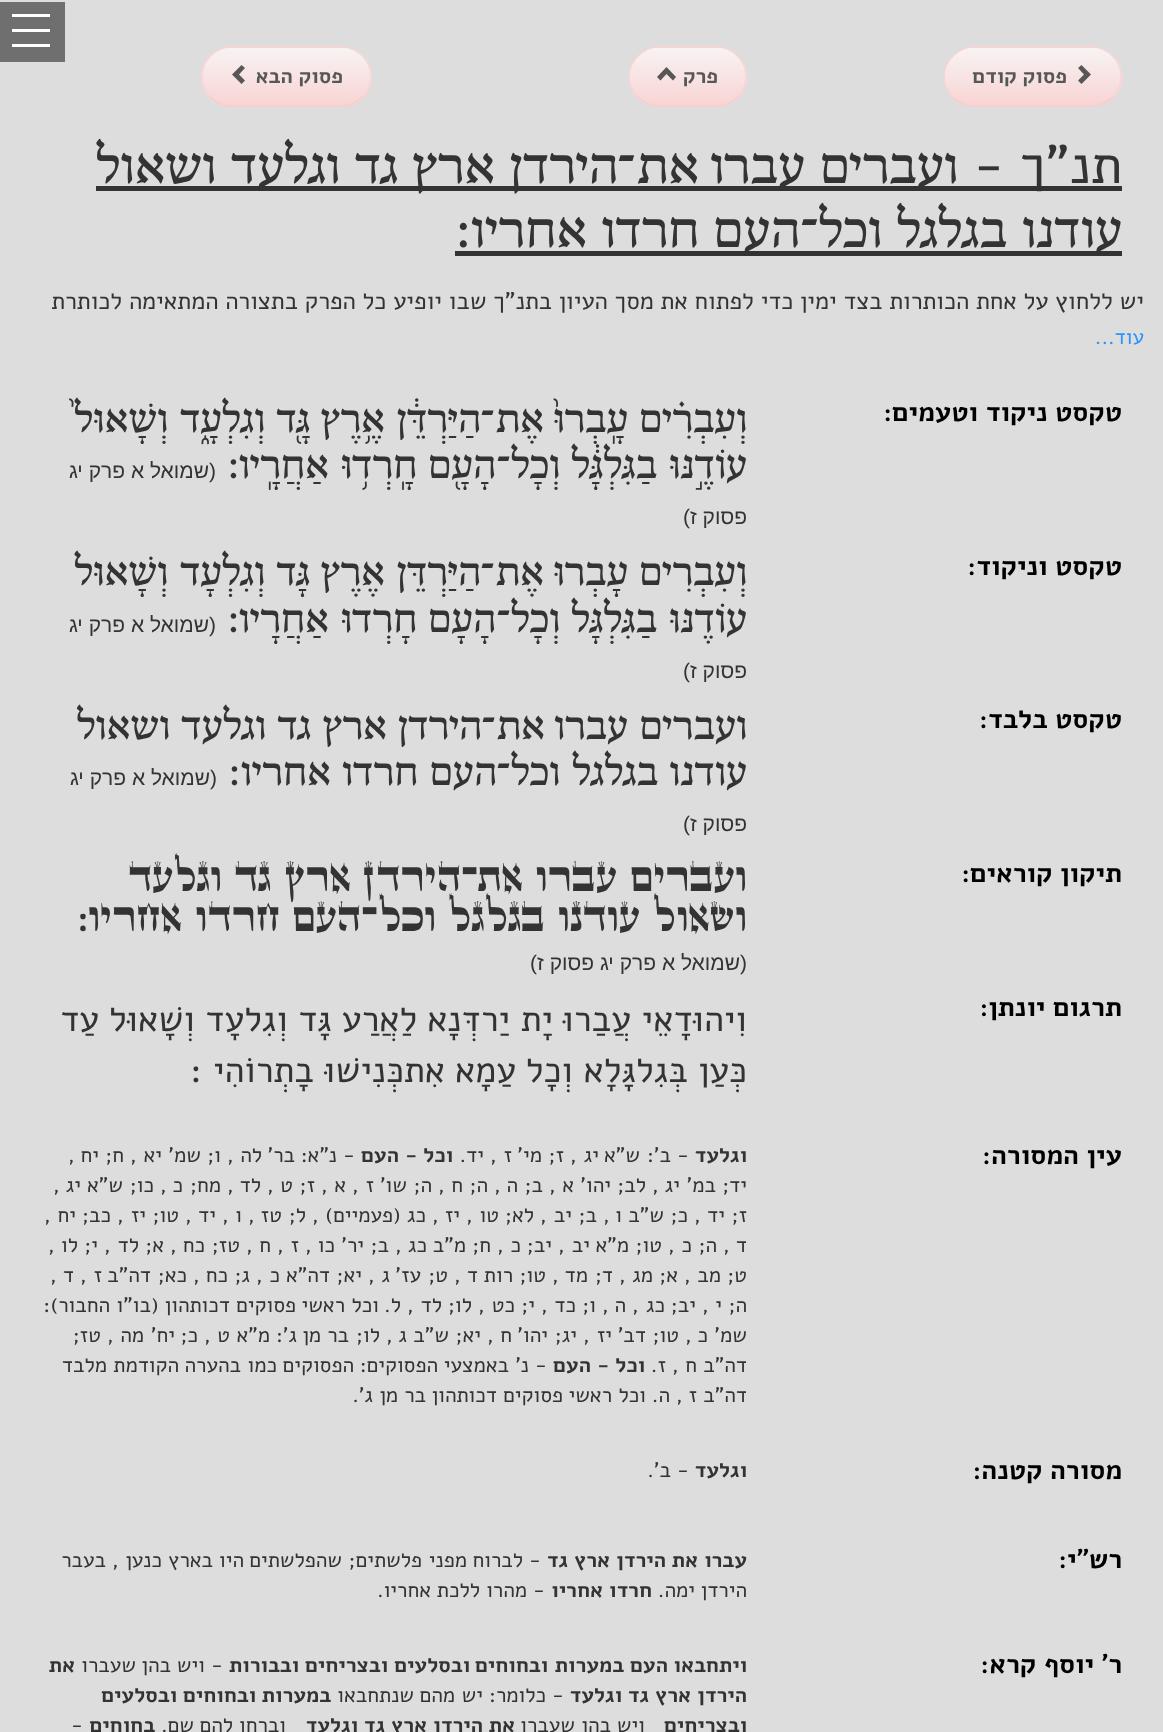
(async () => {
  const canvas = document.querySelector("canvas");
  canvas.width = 1163;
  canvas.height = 1732;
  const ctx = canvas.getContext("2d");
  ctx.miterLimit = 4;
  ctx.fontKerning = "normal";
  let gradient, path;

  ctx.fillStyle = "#dddddd";
  ctx.fillRect(0, 0, 1163, 1732);
  for (const [x, y, w, h, color] of [
    [0, 2, 65, 60, "#6f6f6f"],
    [12, 29, 38, 3, "#ffffff"],
    [12, 14, 38, 3, "#ffffff"],
    [12, 44, 38, 3, "#ffffff"],
  ]) {
    ctx.fillStyle = color;
    ctx.fillRect(x, y, w, h);
  }
  ctx.fillStyle = "#f8d4d4";
  ctx.beginPath();
  ctx.roundRect(944, 47, 178, 60, 30);
  ctx.fill();
  ctx.save();
  ctx.beginPath();
  ctx.roundRect(944, 47, 178, 60, 30);
  ctx.clip();
  gradient = ctx.createLinearGradient(1033, 48, 1033, 105);
  gradient.addColorStop(0, "#f8f3f3");
  gradient.addColorStop(1, "#f8d4d4");
  ctx.fillStyle = gradient;
  ctx.fillRect(944, 48, 178, 57);
  ctx.restore();
  path = new Path2D("M1112.5 97C1107 102.5 1100 106 1092 106H973.5C965.5 106 958.5 102.5 953 97");
  ctx.strokeStyle = "#f8cccc";
  ctx.lineWidth = 1.5;
  ctx.stroke(path);
  path = new Path2D("M953 97C947.5 91.5 944 84.5 944 76.5C944 68.5 947.5 61.5 953 56C958.5 50.5 965.5 47 973.5 47H1092C1100 47 1107 50.5 1112.5 56C1118 61.5 1121 68.5 1121 76.5C1121 84.5 1118 91.5 1112.5 97");
  ctx.strokeStyle = "#f8d4d4";
  ctx.stroke(path);
  ctx.fillStyle = "#575757";
  path = new Path2D("M1091 74.5L1081.5 84L1078 80.5L1084 74.5L1078 68L1081.5 65Z");
  ctx.fill(path);
  ctx.fillStyle = "#f8d4d4";
  ctx.beginPath();
  ctx.roundRect(629, 47, 118, 60, 30);
  ctx.fill();
  ctx.save();
  ctx.beginPath();
  ctx.roundRect(629, 47, 118, 60, 30);
  ctx.clip();
  gradient = ctx.createLinearGradient(688, 48, 688, 105);
  gradient.addColorStop(0, "#f8f3f3");
  gradient.addColorStop(1, "#f8d4d4");
  ctx.fillStyle = gradient;
  ctx.fillRect(629, 48, 118, 57);
  ctx.restore();
  path = new Path2D("M737.5 97C732 102.5 725 106 717 106H658.5C650.5 106 643.5 102.5 638 97");
  ctx.strokeStyle = "#f8cccc";
  ctx.stroke(path);
  path = new Path2D("M638 97C632.5 91.5 629 84.5 629 76.5C629 68.5 632.5 61.5 638 56C643.5 50.5 650.5 47 658.5 47H717C725 47 732 50.5 737.5 56C743 61.5 746 68.5 746 76.5C746 84.5 743 91.5 737.5 97");
  ctx.strokeStyle = "#f8d4d4";
  ctx.stroke(path);
  ctx.fillStyle = "#575757";
  path = new Path2D("M676 77L673 80.5L666.5 74L660.5 80.5L657 77L666.5 67Z");
  ctx.fill(path);
  ctx.fillStyle = "#f8d4d4";
  ctx.beginPath();
  ctx.roundRect(201, 47, 171, 60, 30);
  ctx.fill();
  ctx.save();
  ctx.beginPath();
  ctx.roundRect(201, 47, 171, 60, 30);
  ctx.clip();
  gradient = ctx.createLinearGradient(287, 48, 287, 105);
  gradient.addColorStop(0, "#f8f3f3");
  gradient.addColorStop(1, "#f8d4d4");
  ctx.fillStyle = gradient;
  ctx.fillRect(201, 48, 171, 57);
  ctx.restore();
  path = new Path2D("M362.5 97C357 102.5 350 106 342 106H231C223 106 216 102.5 210.5 97");
  ctx.strokeStyle = "#f8cccc";
  ctx.stroke(path);
  path = new Path2D("M210.5 97C205 91.5 202 84.5 202 76.5C202 68.5 205 61.5 210.5 56C216 50.5 223 47 231 47H342C350 47 357 50.5 362.5 56C368 61.5 371 68.5 371 76.5C371 84.5 368 91.5 362.5 97");
  ctx.strokeStyle = "#f8d4d4";
  ctx.stroke(path);
  ctx.fillStyle = "#575757";
  path = new Path2D("M245 68L239 74.5L245 80.5L241.5 84L232 74.5L241.5 65Z");
  ctx.fill(path);
  ctx.fillStyle = "#333333";
  ctx.fillRect(96, 186, 1026, 5);
  ctx.fillRect(455, 251, 667, 5);
  ctx.direction = "rtl";
  ctx.font = "bold 21px Alef";
  ctx.fillStyle = "#575757";
  for (const [text, x, y] of [
    ["פסוק קודם", 1067, 83],
    ["פרק", 718, 83],
    ["פסוק הבא", 343, 83],
  ]) {
    ctx.fillText(text, x, y);
  }
  ctx.font = "54px Alef";
  ctx.fillStyle = "#333333";
  ctx.fillText("תנ\"ך -", 1122, 183);
  ctx.font = "54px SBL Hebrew";
  for (const [text, x, y] of [
    ["ועברים", 958, 183],
    ["עברו", 805, 183],
    ["את", 699, 183],
    ["־", 636, 183],
    ["הירדן", 618, 183],
    ["ארץ", 495, 183],
    ["גד", 398, 183],
    ["וגלעד", 340, 183],
    ["ושאול", 216, 183],
    ["עודנו", 1122, 247],
    ["בגלגל", 1007, 247],
    ["וכל", 882, 247],
    ["־", 819, 247],
    ["העם", 800, 247],
    ["חרדו", 699, 247],
    ["אחריו", 587, 247],
  ]) {
    ctx.fillText(text, x, y);
  }
  ctx.direction = "ltr";
  ctx.fillText(":", 455, 247);
  ctx.direction = "rtl";
  ctx.font = "24px Alef";
  ctx.fillText("יש ללחוץ על אחת הכותרות בצד ימין כדי לפתוח את מסך העיון בתנ\"ך שבו יופיע כל הפרק בתצורה המתאימה לכותרת", 1144, 309);
  ctx.font = "21px Alef";
  ctx.fillStyle = "#2c93ff";
  ctx.fillText("עוד...", 1144, 344);
  ctx.font = "bold 27px Alef";
  ctx.fillStyle = "#000000";
  ctx.fillText("טקסט ניקוד וטעמים:", 1122, 421);
  ctx.font = "42px SBL Hebrew";
  ctx.fillStyle = "#333333";
  for (const [text, x, y] of [
    ["וְעִבְרִ֗ים", 747, 432],
    ["עָֽבְרוּ֙", 628, 432],
    ["אֶת", 544, 432],
    ["־", 495, 432],
    ["הַיַּרְדֵּ֔ן", 481, 432],
    ["אֶ֥רֶץ", 385, 432],
    ["גָּ֖ד", 310, 432],
    ["וְגִלְעָ֑ד", 265, 432],
    ["וְשָׁאוּל֙", 168, 432],
    ["עוֹדֶ֣נּוּ", 747, 478],
    ["בַגִּלְגָּ֔ל", 657, 478],
    ["וְכָל", 560, 478],
    ["־", 511, 478],
    ["הָעָ֖ם", 496, 478],
    ["חָֽרְד֥וּ", 417, 478],
    ["אַחֲרָֽיו", 329, 478],
  ]) {
    ctx.fillText(text, x, y);
  }
  ctx.direction = "ltr";
  ctx.fillText(":", 227, 478);
  ctx.direction = "rtl";
  ctx.font = "21px Liberation Sans";
  ctx.fillText("(שמואל א פרק יג", 216, 478);
  ctx.fillText("פסוק ז)", 747, 524);
  ctx.font = "bold 27px Alef";
  ctx.fillStyle = "#000000";
  ctx.fillText("טקסט וניקוד:", 1122, 575);
  ctx.font = "42px SBL Hebrew";
  ctx.fillStyle = "#333333";
  for (const [text, x, y] of [
    ["וְעִבְרִים", 747, 585],
    ["עָבְרוּ", 628, 585],
    ["אֶת", 544, 585],
    ["־", 495, 585],
    ["הַיַּרְדֵּן", 481, 585],
    ["אֶרֶץ", 385, 585],
    ["גָּד", 310, 585],
    ["וְגִלְעָד", 265, 585],
    ["וְשָׁאוּל", 168, 585],
    ["עוֹדֶנּוּ", 747, 632],
    ["בַגִּלְגָּל", 657, 632],
    ["וְכָל", 560, 632],
    ["־", 511, 632],
    ["הָעָם", 496, 632],
    ["חָרְדוּ", 417, 632],
    ["אַחֲרָיו", 329, 632],
  ]) {
    ctx.fillText(text, x, y);
  }
  ctx.direction = "ltr";
  ctx.fillText(":", 227, 632);
  ctx.direction = "rtl";
  ctx.font = "21px Liberation Sans";
  ctx.fillText("(שמואל א פרק יג", 216, 632);
  ctx.fillText("פסוק ז)", 747, 678);
  ctx.font = "bold 27px Alef";
  ctx.fillStyle = "#000000";
  ctx.fillText("טקסט בלבד:", 1122, 728);
  ctx.font = "42px SBL Hebrew";
  ctx.fillStyle = "#333333";
  for (const [text, x, y] of [
    ["ועברים", 747, 739],
    ["עברו", 628, 739],
    ["את", 545, 739],
    ["־", 496, 739],
    ["הירדן", 482, 739],
    ["ארץ", 387, 739],
    ["גד", 311, 739],
    ["וגלעד", 266, 739],
    ["ושאול", 170, 739],
    ["עודנו", 747, 785],
    ["בגלגל", 658, 785],
    ["וכל", 560, 785],
    ["־", 511, 785],
    ["העם", 497, 785],
    ["חרדו", 418, 785],
    ["אחריו", 331, 785],
  ]) {
    ctx.fillText(text, x, y);
  }
  ctx.direction = "ltr";
  ctx.fillText(":", 228, 785);
  ctx.direction = "rtl";
  ctx.font = "21px Liberation Sans";
  ctx.fillText("(שמואל א פרק יג", 217, 785);
  ctx.fillText("פסוק ז)", 747, 831);
  ctx.font = "bold 27px Alef";
  ctx.fillStyle = "#000000";
  ctx.fillText("תיקון קוראים:", 1122, 882);
  ctx.font = "36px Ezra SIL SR";
  ctx.fillStyle = "#333333";
  for (const [text, x, y] of [
    ["ועברים", 747, 891],
    ["עברו", 617, 891],
    ["את", 523, 891],
    ["־", 478, 891],
    ["הירדן", 461, 891],
    ["ארץ", 351, 891],
    ["גד", 271, 891],
    ["וגלעד", 222, 891],
    ["ושאול", 747, 931],
    ["עודנו", 640, 931],
    ["בגלגל", 545, 931],
    ["וכל", 436, 931],
    ["־", 378, 931],
    ["העם", 361, 931],
    ["חרדו", 280, 931],
    ["אחריו", 182, 931],
  ]) {
    ctx.fillText(text, x, y);
  }
  ctx.direction = "ltr";
  ctx.fillText(":", 78, 931);
  ctx.direction = "rtl";
  ctx.font = "21px Liberation Sans";
  ctx.fillText("(שמואל א פרק יג פסוק ז)", 747, 970);
  ctx.font = "bold 27px Alef";
  ctx.fillStyle = "#000000";
  ctx.fillText("תרגום יונתן:", 1122, 1016);
  ctx.font = "36px Alef";
  ctx.fillStyle = "#333333";
  for (const [text, x, y] of [
    ["וִיהוּדָאֵי", 747, 1031],
    ["עֲבַרוּ", 631, 1031],
    ["יָת", 553, 1031],
    ["יַרדְּנָא", 510, 1031],
    ["לַאֲרַע", 417, 1031],
    ["גָּד", 332, 1031],
    ["וְגִלעָד", 288, 1031],
    ["וְשָׁאוּל", 195, 1031],
    ["עַד", 99, 1031],
    ["כְּעַן", 747, 1082],
    ["בְּגִלגָּלָא", 688, 1082],
    ["וְכָל", 573, 1082],
    ["עַמָא", 516, 1082],
    ["אִתכְּנִישׁוּ", 445, 1082],
    ["בָתְרוֹהִי", 314, 1082],
  ]) {
    ctx.fillText(text, x, y);
  }
  ctx.direction = "ltr";
  ctx.fillText(":", 190, 1082);
  ctx.direction = "rtl";
  ctx.font = "bold 27px Alef";
  ctx.fillStyle = "#000000";
  ctx.fillText("עין המסורה:", 1122, 1164);
  ctx.font = "bold 21px Alef";
  ctx.fillStyle = "#333333";
  ctx.fillText("וגלעד", 747, 1162);
  ctx.direction = "ltr";
  ctx.font = "21px Alef";
  ctx.fillText("-", 677, 1162);
  ctx.direction = "rtl";
  for (const [text, x, y] of [
    ["ב':", 671, 1162],
    ["ש\"א", 640, 1162],
    ["יג", 599, 1162],
    ["ז;", 564, 1162],
    ["מי'", 542, 1162],
    ["ז", 512, 1162],
    ["יד.", 484, 1162],
  ]) {
    ctx.fillText(text, x, y);
  }
  ctx.font = "bold 21px Alef";
  ctx.fillText("וכל", 453, 1162);
  ctx.direction = "ltr";
  ctx.fillText("-", 405, 1162);
  ctx.direction = "rtl";
  ctx.fillText("העם", 399, 1162);
  ctx.direction = "ltr";
  ctx.font = "21px Alef";
  ctx.fillText("-", 343, 1162);
  ctx.direction = "rtl";
  for (const [text, x, y] of [
    ["נ\"א:", 337, 1162],
    ["בר'", 295, 1162],
    ["לה", 262, 1162],
    ["ו;", 221, 1162],
    ["שמ'", 201, 1162],
    ["יא", 162, 1162],
    ["ח;", 124, 1162],
    ["יח", 99, 1162],
  ]) {
    ctx.fillText(text, x, y);
  }
  ctx.direction = "ltr";
  for (const [text, x, y] of [
    [",", 570, 1162],
    [",", 490, 1162],
    [",", 227, 1162],
    [",", 130, 1162],
    [",", 68, 1162],
  ]) {
    ctx.fillText(text, x, y);
  }
  ctx.direction = "rtl";
  for (const [text, x, y] of [
    ["יד;", 747, 1192],
    ["במ'", 716, 1192],
    ["יג", 680, 1192],
  ]) {
    ctx.fillText(text, x, y);
  }
  ctx.direction = "ltr";
  ctx.fillText(",", 652, 1192);
  ctx.direction = "rtl";
  for (const [text, x, y] of [
    ["לב;", 646, 1192],
    ["יהו'", 611, 1192],
    ["א", 574, 1192],
  ]) {
    ctx.fillText(text, x, y);
  }
  ctx.direction = "ltr";
  ctx.fillText(",", 549, 1192);
  ctx.direction = "rtl";
  ctx.fillText("ב;", 543, 1192);
  ctx.fillText("ה", 518, 1192);
  ctx.direction = "ltr";
  ctx.fillText(",", 494, 1192);
  ctx.direction = "rtl";
  ctx.fillText("ה;", 488, 1192);
  ctx.fillText("ח", 463, 1192);
  ctx.direction = "ltr";
  ctx.fillText(",", 438, 1192);
  ctx.direction = "rtl";
  for (const [text, x, y] of [
    ["ה;", 432, 1192],
    ["שו'", 407, 1192],
    ["ז", 374, 1192],
  ]) {
    ctx.fillText(text, x, y);
  }
  ctx.direction = "ltr";
  ctx.fillText(",", 352, 1192);
  ctx.direction = "rtl";
  ctx.fillText("א", 346, 1192);
  ctx.direction = "ltr";
  ctx.fillText(",", 321, 1192);
  ctx.direction = "rtl";
  ctx.fillText("ז;", 315, 1192);
  ctx.fillText("ט", 293, 1192);
  ctx.direction = "ltr";
  ctx.fillText(",", 267, 1192);
  ctx.direction = "rtl";
  ctx.fillText("לד", 261, 1192);
  ctx.direction = "ltr";
  ctx.fillText(",", 227, 1192);
  ctx.direction = "rtl";
  ctx.fillText("מח;", 221, 1192);
  ctx.fillText("כ", 183, 1192);
  ctx.direction = "ltr";
  ctx.fillText(",", 160, 1192);
  ctx.direction = "rtl";
  for (const [text, x, y] of [
    ["כו;", 154, 1192],
    ["ש\"א", 123, 1192],
    ["יג", 81, 1192],
  ]) {
    ctx.fillText(text, x, y);
  }
  ctx.direction = "ltr";
  ctx.fillText(",", 53, 1192);
  ctx.direction = "rtl";
  ctx.fillText("ז;", 747, 1222);
  ctx.fillText("יד", 725, 1222);
  ctx.direction = "ltr";
  ctx.fillText(",", 694, 1222);
  ctx.direction = "rtl";
  for (const [text, x, y] of [
    ["כ;", 688, 1222],
    ["ש\"ב", 664, 1222],
    ["ו", 622, 1222],
  ]) {
    ctx.fillText(text, x, y);
  }
  ctx.direction = "ltr";
  ctx.fillText(",", 603, 1222);
  ctx.direction = "rtl";
  ctx.fillText("ב;", 597, 1222);
  ctx.fillText("יב", 572, 1222);
  ctx.direction = "ltr";
  ctx.fillText(",", 540, 1222);
  ctx.direction = "rtl";
  ctx.fillText("לא;", 534, 1222);
  ctx.fillText("טו", 499, 1222);
  ctx.direction = "ltr";
  ctx.fillText(",", 466, 1222);
  ctx.direction = "rtl";
  ctx.fillText("יז", 460, 1222);
  ctx.direction = "ltr";
  ctx.fillText(",", 432, 1222);
  ctx.direction = "rtl";
  ctx.fillText("כג", 426, 1222);
  ctx.fillText("(פעמיים)", 401, 1222);
  ctx.direction = "ltr";
  ctx.fillText(",", 312, 1222);
  ctx.direction = "rtl";
  ctx.fillText("ל;", 306, 1222);
  ctx.fillText("טז", 282, 1222);
  ctx.direction = "ltr";
  ctx.fillText(",", 248, 1222);
  ctx.direction = "rtl";
  ctx.fillText("ו", 242, 1222);
  ctx.direction = "ltr";
  ctx.fillText(",", 222, 1222);
  ctx.direction = "rtl";
  ctx.fillText("יד", 216, 1222);
  ctx.direction = "ltr";
  ctx.fillText(",", 185, 1222);
  ctx.direction = "rtl";
  ctx.fillText("טו;", 179, 1222);
  ctx.fillText("יז", 146, 1222);
  ctx.direction = "ltr";
  ctx.fillText(",", 117, 1222);
  ctx.direction = "rtl";
  ctx.fillText("כב;", 111, 1222);
  ctx.fillText("יח", 76, 1222);
  ctx.direction = "ltr";
  ctx.fillText(",", 44, 1222);
  ctx.direction = "rtl";
  ctx.fillText("ד", 747, 1252);
  ctx.direction = "ltr";
  ctx.fillText(",", 723, 1252);
  ctx.direction = "rtl";
  ctx.fillText("ה;", 717, 1252);
  ctx.fillText("כ", 692, 1252);
  ctx.direction = "ltr";
  ctx.fillText(",", 668, 1252);
  ctx.direction = "rtl";
  for (const [text, x, y] of [
    ["טו;", 662, 1252],
    ["מ\"א", 629, 1252],
    ["יב", 590, 1252],
  ]) {
    ctx.fillText(text, x, y);
  }
  ctx.direction = "ltr";
  ctx.fillText(",", 558, 1252);
  ctx.direction = "rtl";
  ctx.fillText("יב;", 552, 1252);
  ctx.fillText("כ", 521, 1252);
  ctx.direction = "ltr";
  ctx.fillText(",", 497, 1252);
  ctx.direction = "rtl";
  for (const [text, x, y] of [
    ["ח;", 491, 1252],
    ["מ\"ב", 466, 1252],
    ["כג", 427, 1252],
  ]) {
    ctx.fillText(text, x, y);
  }
  ctx.direction = "ltr";
  ctx.fillText(",", 395, 1252);
  ctx.direction = "rtl";
  for (const [text, x, y] of [
    ["ב;", 389, 1252],
    ["יר'", 364, 1252],
    ["כו", 335, 1252],
  ]) {
    ctx.fillText(text, x, y);
  }
  ctx.direction = "ltr";
  ctx.fillText(",", 305, 1252);
  ctx.direction = "rtl";
  ctx.fillText("ז", 299, 1252);
  ctx.direction = "ltr";
  ctx.fillText(",", 277, 1252);
  ctx.direction = "rtl";
  ctx.fillText("ח", 271, 1252);
  ctx.direction = "ltr";
  ctx.fillText(",", 246, 1252);
  ctx.direction = "rtl";
  ctx.fillText("טז;", 240, 1252);
  ctx.fillText("כח", 205, 1252);
  ctx.direction = "ltr";
  ctx.fillText(",", 170, 1252);
  ctx.direction = "rtl";
  ctx.fillText("א;", 164, 1252);
  ctx.fillText("לד", 139, 1252);
  ctx.direction = "ltr";
  ctx.fillText(",", 104, 1252);
  ctx.direction = "rtl";
  ctx.fillText("י;", 98, 1252);
  ctx.fillText("לו", 78, 1252);
  ctx.direction = "ltr";
  ctx.fillText(",", 48, 1252);
  ctx.direction = "rtl";
  ctx.fillText("ט;", 747, 1282);
  ctx.fillText("מב", 721, 1282);
  ctx.direction = "ltr";
  ctx.fillText(",", 684, 1282);
  ctx.direction = "rtl";
  ctx.fillText("א;", 678, 1282);
  ctx.fillText("מג", 653, 1282);
  ctx.direction = "ltr";
  ctx.fillText(",", 619, 1282);
  ctx.direction = "rtl";
  ctx.fillText("ד;", 613, 1282);
  ctx.fillText("מד", 588, 1282);
  ctx.direction = "ltr";
  ctx.fillText(",", 552, 1282);
  ctx.direction = "rtl";
  for (const [text, x, y] of [
    ["טו;", 546, 1282],
    ["רות", 513, 1282],
    ["ד", 478, 1282],
  ]) {
    ctx.fillText(text, x, y);
  }
  ctx.direction = "ltr";
  ctx.fillText(",", 454, 1282);
  ctx.direction = "rtl";
  for (const [text, x, y] of [
    ["ט;", 448, 1282],
    ["עז'", 421, 1282],
    ["ג", 390, 1282],
  ]) {
    ctx.fillText(text, x, y);
  }
  ctx.direction = "ltr";
  ctx.fillText(",", 368, 1282);
  ctx.direction = "rtl";
  for (const [text, x, y] of [
    ["יא;", 362, 1282],
    ["דה\"א", 330, 1282],
    ["כ", 280, 1282],
  ]) {
    ctx.fillText(text, x, y);
  }
  ctx.direction = "ltr";
  ctx.fillText(",", 256, 1282);
  ctx.direction = "rtl";
  ctx.fillText("ג;", 250, 1282);
  ctx.fillText("כח", 228, 1282);
  ctx.direction = "ltr";
  ctx.fillText(",", 193, 1282);
  ctx.direction = "rtl";
  for (const [text, x, y] of [
    ["כא;", 187, 1282],
    ["דה\"ב", 151, 1282],
    ["ז", 102, 1282],
  ]) {
    ctx.fillText(text, x, y);
  }
  ctx.direction = "ltr";
  ctx.fillText(",", 80, 1282);
  ctx.direction = "rtl";
  ctx.fillText("ד", 74, 1282);
  ctx.direction = "ltr";
  ctx.fillText(",", 50, 1282);
  ctx.direction = "rtl";
  ctx.fillText("ה;", 747, 1312);
  ctx.fillText("י", 722, 1312);
  ctx.direction = "ltr";
  ctx.fillText(",", 702, 1312);
  ctx.direction = "rtl";
  ctx.fillText("יב;", 696, 1312);
  ctx.fillText("כג", 665, 1312);
  ctx.direction = "ltr";
  ctx.fillText(",", 632, 1312);
  ctx.direction = "rtl";
  ctx.fillText("ה", 626, 1312);
  ctx.direction = "ltr";
  ctx.fillText(",", 602, 1312);
  ctx.direction = "rtl";
  ctx.fillText("ו;", 596, 1312);
  ctx.fillText("כד", 576, 1312);
  ctx.direction = "ltr";
  ctx.fillText(",", 541, 1312);
  ctx.direction = "rtl";
  ctx.fillText("י;", 535, 1312);
  ctx.fillText("כט", 515, 1312);
  ctx.direction = "ltr";
  ctx.fillText(",", 478, 1312);
  ctx.direction = "rtl";
  ctx.fillText("לו;", 472, 1312);
  ctx.fillText("לד", 442, 1312);
  ctx.direction = "ltr";
  ctx.fillText(",", 407, 1312);
  ctx.direction = "rtl";
  for (const [text, x, y] of [
    ["ל.", 401, 1312],
    ["וכל", 379, 1312],
    ["ראשי", 345, 1312],
    ["פסוקים", 296, 1312],
    ["דכותהון", 230, 1312],
    ["(בו\"ו", 159, 1312],
    ["החבור):", 110, 1312],
    ["שמ'", 747, 1342],
    ["כ", 708, 1342],
  ]) {
    ctx.fillText(text, x, y);
  }
  ctx.direction = "ltr";
  ctx.fillText(",", 685, 1342);
  ctx.direction = "rtl";
  for (const [text, x, y] of [
    ["טו;", 679, 1342],
    ["דב'", 646, 1342],
    ["יז", 612, 1342],
  ]) {
    ctx.fillText(text, x, y);
  }
  ctx.direction = "ltr";
  ctx.fillText(",", 583, 1342);
  ctx.direction = "rtl";
  for (const [text, x, y] of [
    ["יג;", 577, 1342],
    ["יהו'", 548, 1342],
    ["ח", 512, 1342],
  ]) {
    ctx.fillText(text, x, y);
  }
  ctx.direction = "ltr";
  ctx.fillText(",", 487, 1342);
  ctx.direction = "rtl";
  for (const [text, x, y] of [
    ["יא;", 481, 1342],
    ["ש\"ב", 449, 1342],
    ["ג", 407, 1342],
  ]) {
    ctx.fillText(text, x, y);
  }
  ctx.direction = "ltr";
  ctx.fillText(",", 386, 1342);
  ctx.direction = "rtl";
  for (const [text, x, y] of [
    ["לו;", 380, 1342],
    ["בר", 349, 1342],
    ["מן", 321, 1342],
    ["ג':", 297, 1342],
    ["מ\"א", 270, 1342],
    ["ט", 230, 1342],
  ]) {
    ctx.fillText(text, x, y);
  }
  ctx.direction = "ltr";
  ctx.fillText(",", 204, 1342);
  ctx.direction = "rtl";
  for (const [text, x, y] of [
    ["כ;", 198, 1342],
    ["יח'", 175, 1342],
    ["מה", 144, 1342],
  ]) {
    ctx.fillText(text, x, y);
  }
  ctx.direction = "ltr";
  ctx.fillText(",", 107, 1342);
  ctx.direction = "rtl";
  for (const [text, x, y] of [
    ["טז;", 101, 1342],
    ["דה\"ב", 747, 1372],
    ["ח", 697, 1372],
    ["ז.", 666, 1372],
  ]) {
    ctx.fillText(text, x, y);
  }
  ctx.font = "bold 21px Alef";
  ctx.fillText("וכל", 645, 1372);
  ctx.direction = "ltr";
  ctx.fillText("-", 597, 1372);
  ctx.direction = "rtl";
  ctx.fillText("העם", 591, 1372);
  ctx.direction = "ltr";
  ctx.font = "21px Alef";
  ctx.fillText("-", 535, 1372);
  ctx.direction = "rtl";
  for (const [text, x, y] of [
    ["נ'", 529, 1372],
    ["באמצעי", 509, 1372],
    ["הפסוקים:", 438, 1372],
    ["הפסוקים", 354, 1372],
    ["כמו", 277, 1372],
    ["בהערה", 241, 1372],
    ["הקודמת", 179, 1372],
    ["מלבד", 107, 1372],
  ]) {
    ctx.fillText(text, x, y);
  }
  ctx.direction = "ltr";
  ctx.fillText(",", 672, 1372);
  ctx.direction = "rtl";
  ctx.fillText("דה\"ב", 747, 1402);
  ctx.fillText("ז", 697, 1402);
  ctx.direction = "ltr";
  ctx.fillText(",", 676, 1402);
  ctx.direction = "rtl";
  for (const [text, x, y] of [
    ["ה.", 670, 1402],
    ["וכל", 646, 1402],
    ["ראשי", 612, 1402],
    ["פסוקים", 563, 1402],
    ["דכותהון", 497, 1402],
    ["בר", 426, 1402],
    ["מן", 398, 1402],
    ["ג'.", 373, 1402],
  ]) {
    ctx.fillText(text, x, y);
  }
  ctx.font = "bold 27px Alef";
  ctx.fillStyle = "#000000";
  ctx.fillText("מסורה קטנה:", 1122, 1479);
  ctx.font = "bold 21px Alef";
  ctx.fillStyle = "#333333";
  ctx.fillText("וגלעד", 747, 1477);
  ctx.direction = "ltr";
  ctx.font = "21px Alef";
  ctx.fillText("-", 677, 1477);
  ctx.direction = "rtl";
  ctx.fillText("ב'.", 671, 1477);
  ctx.font = "bold 27px Alef";
  ctx.fillStyle = "#000000";
  ctx.fillText("רש\"י:", 1122, 1568);
  ctx.font = "bold 21px Alef";
  ctx.fillStyle = "#333333";
  for (const [text, x, y] of [
    ["עברו", 747, 1567],
    ["את", 698, 1567],
    ["הירדן", 666, 1567],
    ["ארץ", 610, 1567],
    ["גד", 568, 1567],
  ]) {
    ctx.fillText(text, x, y);
  }
  ctx.direction = "ltr";
  ctx.font = "21px Alef";
  ctx.fillText("-", 529, 1567);
  ctx.direction = "rtl";
  for (const [text, x, y] of [
    ["לברוח", 523, 1567],
    ["מפני", 467, 1567],
    ["פלשתים;", 422, 1567],
    ["שהפלשתים", 342, 1567],
    ["היו", 244, 1567],
    ["בארץ", 213, 1567],
    ["כנען", 162, 1567],
    ["בעבר", 106, 1567],
  ]) {
    ctx.fillText(text, x, y);
  }
  ctx.direction = "ltr";
  ctx.fillText(",", 112, 1567);
  ctx.direction = "rtl";
  ctx.fillText("הירדן", 747, 1597);
  ctx.fillText("ימה.", 695, 1597);
  ctx.font = "bold 21px Alef";
  ctx.fillText("חרדו", 652, 1597);
  ctx.fillText("אחריו", 603, 1597);
  ctx.direction = "ltr";
  ctx.font = "21px Alef";
  ctx.fillText("-", 533, 1597);
  ctx.direction = "rtl";
  for (const [text, x, y] of [
    ["מהרו", 527, 1597],
    ["ללכת", 480, 1597],
    ["אחריו.", 431, 1597],
  ]) {
    ctx.fillText(text, x, y);
  }
  ctx.font = "bold 27px Alef";
  ctx.fillStyle = "#000000";
  ctx.fillText("ר' יוסף קרא:", 1122, 1673);
  ctx.font = "bold 21px Alef";
  ctx.fillStyle = "#333333";
  for (const [text, x, y] of [
    ["ויתחבאו", 747, 1672],
    ["העם", 668, 1672],
    ["במערות", 624, 1672],
    ["ובחוחים", 548, 1672],
    ["ובסלעים", 470, 1672],
    ["ובצריחים", 388, 1672],
    ["ובבורות", 299, 1672],
  ]) {
    ctx.fillText(text, x, y);
  }
  ctx.direction = "ltr";
  ctx.font = "21px Alef";
  ctx.fillText("-", 211, 1672);
  ctx.direction = "rtl";
  for (const [text, x, y] of [
    ["ויש", 205, 1672],
    ["בהן", 171, 1672],
    ["שעברו", 136, 1672],
  ]) {
    ctx.fillText(text, x, y);
  }
  ctx.font = "bold 21px Alef";
  for (const [text, x, y] of [
    ["את", 75, 1672],
    ["הירדן", 747, 1702],
    ["ארץ", 691, 1702],
    ["גד", 649, 1702],
    ["וגלעד", 622, 1702],
  ]) {
    ctx.fillText(text, x, y);
  }
  ctx.direction = "ltr";
  ctx.font = "21px Alef";
  ctx.fillText("-", 552, 1702);
  ctx.direction = "rtl";
  for (const [text, x, y] of [
    ["כלומר:", 546, 1702],
    ["יש", 483, 1702],
    ["מהם", 455, 1702],
    ["שנתחבאו", 414, 1702],
  ]) {
    ctx.fillText(text, x, y);
  }
  ctx.font = "bold 21px Alef";
  for (const [text, x, y] of [
    ["במערות", 331, 1702],
    ["ובחוחים", 256, 1702],
    ["ובסלעים", 177, 1702],
    ["ובצריחים", 747, 1732],
  ]) {
    ctx.fillText(text, x, y);
  }
  ctx.font = "21px Alef";
  for (const [text, x, y] of [
    ["ויש", 645, 1732],
    ["בהן", 611, 1732],
    ["שעברו", 575, 1732],
  ]) {
    ctx.fillText(text, x, y);
  }
  ctx.font = "bold 21px Alef";
  for (const [text, x, y] of [
    ["את", 515, 1732],
    ["הירדן", 483, 1732],
    ["ארץ", 427, 1732],
    ["גד", 385, 1732],
    ["וגלעד", 358, 1732],
  ]) {
    ctx.fillText(text, x, y);
  }
  ctx.font = "21px Alef";
  for (const [text, x, y] of [
    ["וברחו", 286, 1732],
    ["להם", 233, 1732],
    ["שם.", 194, 1732],
  ]) {
    ctx.fillText(text, x, y);
  }
  ctx.font = "bold 21px Alef";
  ctx.fillText("בחוחים", 155, 1732);
  ctx.direction = "ltr";
  ctx.font = "21px Alef";
  ctx.fillText("-", 71, 1732);
})();
